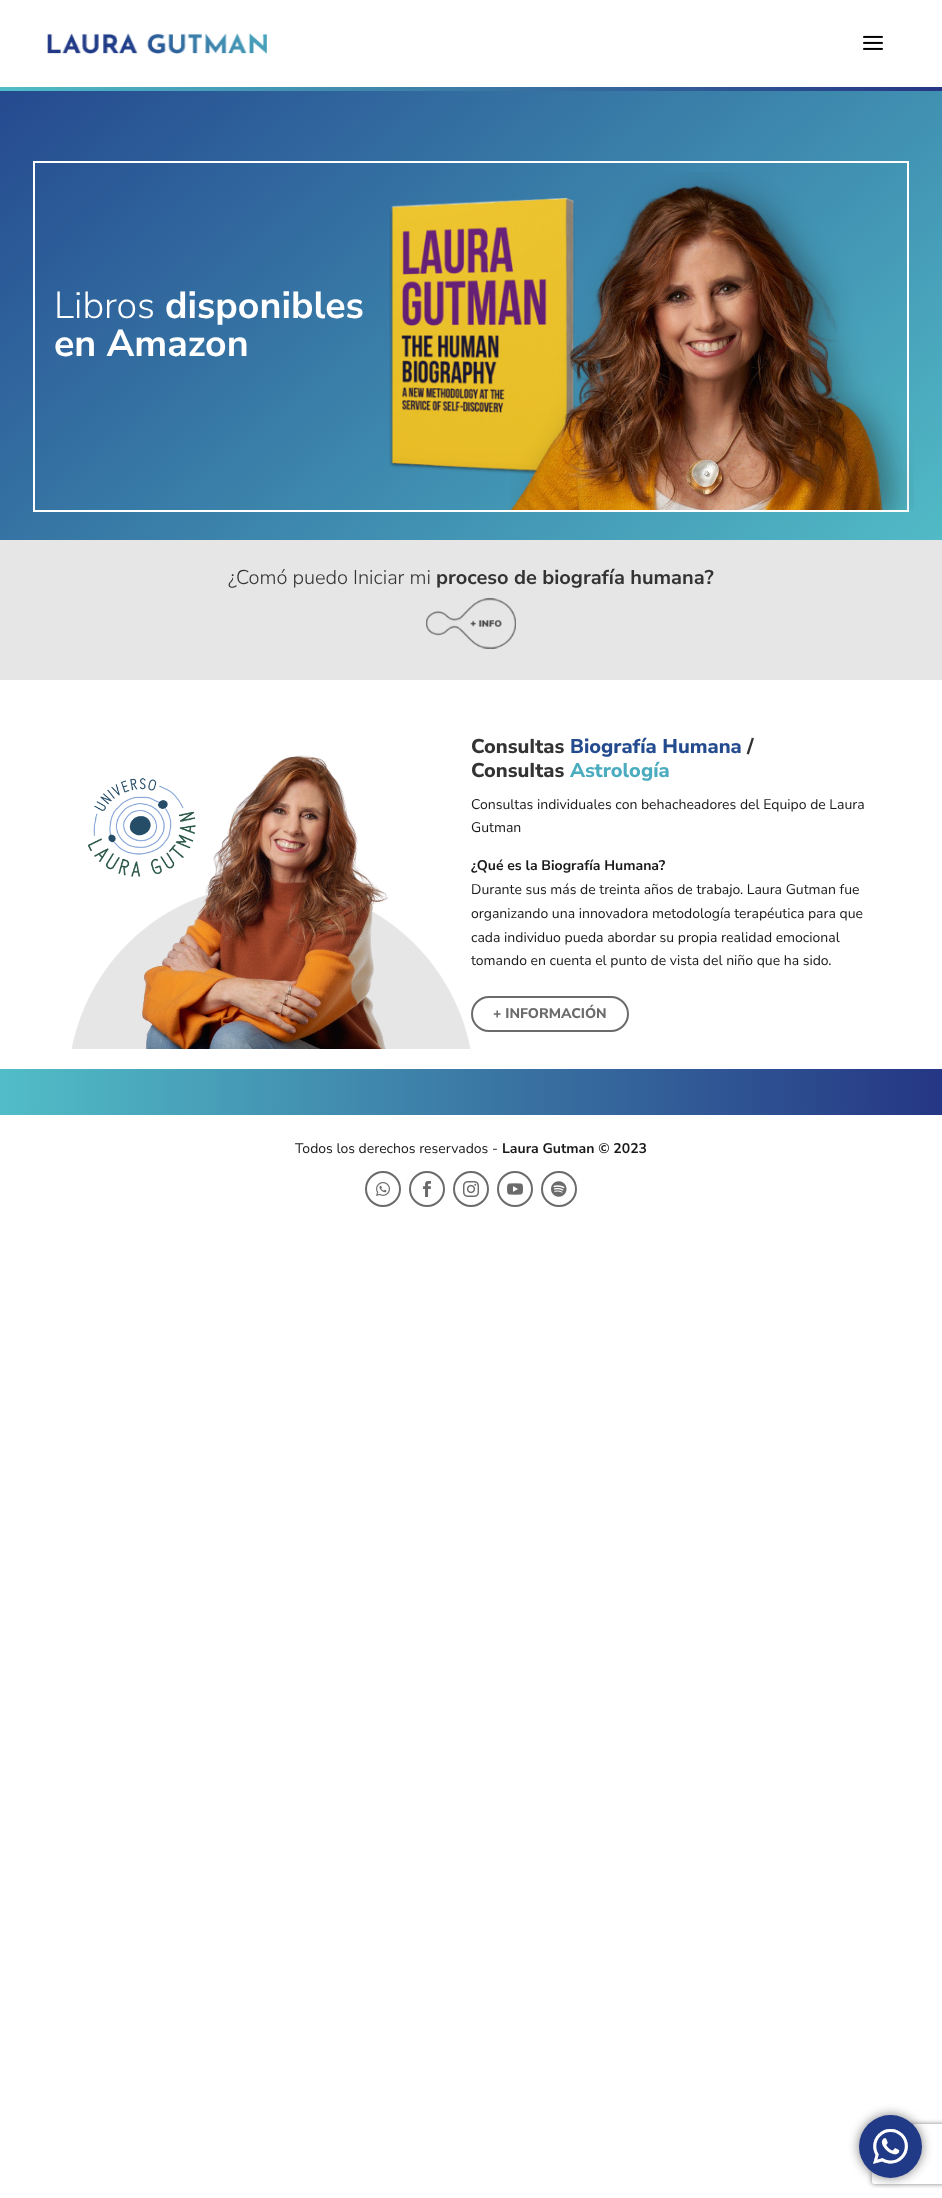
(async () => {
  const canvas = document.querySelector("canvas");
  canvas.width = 942;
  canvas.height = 2198;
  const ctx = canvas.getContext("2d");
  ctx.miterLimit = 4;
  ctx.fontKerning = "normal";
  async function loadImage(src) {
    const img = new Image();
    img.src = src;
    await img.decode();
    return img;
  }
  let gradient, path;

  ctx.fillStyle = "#ffffff";
  ctx.fillRect(0, 0, 942, 2198);
  ctx.drawImage(await loadImage("img/1.png"), 0, 87, 942, 4);
  ctx.drawImage(await loadImage("img/2.png"), 47, 33, 220, 21);
  ctx.drawImage(await loadImage("img/3.png"), 863, 35, 20, 15);
  gradient = ctx.createLinearGradient(162, -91, 780, 671);
  gradient.addColorStop(0, "#23458d");
  gradient.addColorStop(1, "#51bac6");
  ctx.fillStyle = gradient;
  ctx.fillRect(0, 91, 942, 449);
  ctx.strokeStyle = "#ffffff";
  ctx.lineWidth = 2;
  ctx.strokeRect(34, 162, 874, 349);
  ctx.drawImage(await loadImage("img/4.png"), 389, 198, 186, 276);
  ctx.drawImage(await loadImage("img/5.png"), 510, 172, 404, 338);
  ctx.fillStyle = "#e6e6e6";
  ctx.fillRect(0, 540, 942, 140);
  ctx.drawImage(await loadImage("img/6.png"), 426, 598, 90, 51);
  ctx.drawImage(await loadImage("img/7.png"), 71, 755, 400, 294);
  ctx.beginPath();
  ctx.roundRect(472, 997, 156, 34, 17);
  ctx.strokeStyle = "#6b6b6b";
  ctx.stroke();
  gradient = ctx.createLinearGradient(0, 1090, 942, 1090);
  gradient.addColorStop(0, "#51bdc7");
  gradient.addColorStop(1, "#253684");
  ctx.fillStyle = gradient;
  ctx.fillRect(0, 1069, 942, 42);
  ctx.drawImage(await loadImage("img/8.png"), 0, 1111, 942, 4);
  ctx.beginPath();
  ctx.arc(383, 1189, 17, 0, Math.PI * 2);
  ctx.stroke();
  ctx.drawImage(await loadImage("img/9.png"), 376, 1182, 14, 14);
  ctx.beginPath();
  ctx.arc(427, 1189, 17, 0, Math.PI * 2);
  ctx.stroke();
  ctx.drawImage(await loadImage("img/10.png"), 423, 1181, 8, 16);
  ctx.beginPath();
  ctx.arc(471, 1189, 17, 0, Math.PI * 2);
  ctx.stroke();
  ctx.drawImage(await loadImage("img/11.png"), 463, 1181, 16, 16);
  ctx.beginPath();
  ctx.arc(515, 1189, 17, 0, Math.PI * 2);
  ctx.stroke();
  ctx.drawImage(await loadImage("img/12.png"), 507, 1183, 16, 12);
  ctx.beginPath();
  ctx.arc(559, 1189, 17, 0, Math.PI * 2);
  ctx.stroke();
  ctx.drawImage(await loadImage("img/13.png"), 551, 1181, 16, 16);
  ctx.fillStyle = "rgba(0, 0, 0, 0.5)";
  ctx.filter = "blur(5.5px)";
  ctx.beginPath();
  ctx.roundRect(859, 2115, 63, 63, 31.5);
  ctx.fill();
  ctx.filter = "none";
  ctx.save();
  path = new Path2D("M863 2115H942V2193H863ZM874 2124H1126C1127 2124 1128 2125 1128 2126V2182C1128 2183 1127 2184 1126 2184H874C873 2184 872 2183 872 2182V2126C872 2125 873 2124 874 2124Z");
  ctx.clip(path, "evenodd");
  ctx.fillStyle = "#808080";
  ctx.filter = "blur(2.5px)";
  ctx.beginPath();
  ctx.roundRect(872, 2124, 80, 60, 2);
  ctx.fill();
  ctx.filter = "none";
  ctx.restore();
  ctx.fillStyle = "#213a87";
  ctx.beginPath();
  ctx.arc(890.5, 2146.5, 31.5, 0, Math.PI * 2);
  ctx.fill();
  ctx.drawImage(await loadImage("img/14.png"), 873, 2129, 35, 35);
  ctx.font = "200 37.5px Nunito Sans";
  ctx.fillStyle = "#ffffff";
  ctx.fillText("Libros", 54, 318);
  ctx.font = "200 37.5px 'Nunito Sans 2'";
  ctx.fillText("disponibles", 165, 318);
  ctx.fillText("en Amazon", 54, 356);
  ctx.font = "200 20px Nunito Sans";
  ctx.fillStyle = "#333333";
  ctx.fillText("¿Comó puedo Iniciar mi", 228, 584);
  ctx.font = "200 20px 'Nunito Sans 2'";
  ctx.fillText("proceso de biografía humana?", 436, 584);
  ctx.font = "200 20px 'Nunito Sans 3'";
  ctx.fillText("ConsuItas", 471, 753);
  ctx.fillStyle = "#254b8f";
  ctx.fillText("Biografía Humana", 570, 753);
  ctx.fillStyle = "#333333";
  ctx.fillText("/", 747, 753);
  ctx.fillText("ConsuItas", 471, 777);
  ctx.fillStyle = "#4bacbf";
  ctx.fillText("Astrología", 570, 777);
  ctx.font = "200 14px 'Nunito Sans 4'";
  ctx.fillStyle = "#191919";
  ctx.fillText("Consultas individuales con behacheadores del Equipo de Laura", 471, 809);
  ctx.fillText("Gutman", 471, 832);
  ctx.font = "200 14px 'Nunito Sans 2'";
  ctx.fillText("¿Qué es la Biografía Humana?", 471, 870);
  ctx.font = "200 14px 'Nunito Sans 4'";
  for (const [text, x, y] of [
    ["Durante sus más de treinta años de trabajo. Laura Gutman fue", 471, 894],
    ["organizando una innovadora metodología terapéutica para que", 471, 918],
    ["cada individuo pueda abordar su propia realidad emocional", 471, 942],
    ["tomando en cuenta el punto de vista del niño que ha sido.", 471, 965],
  ]) {
    ctx.fillText(text, x, y);
  }
  ctx.font = "200 14px 'Nunito Sans 3'";
  ctx.fillStyle = "#6b6b6b";
  ctx.fillText("+ INFORMACIÓN", 493, 1018);
  ctx.font = "200 14px 'Nunito Sans 4'";
  ctx.fillStyle = "#191919";
  ctx.fillText("Todos los derechos reservados -", 295, 1153);
  ctx.font = "200 14px 'Nunito Sans 2'";
  ctx.fillText("Laura Gutman © 2023", 502, 1153);
})();
